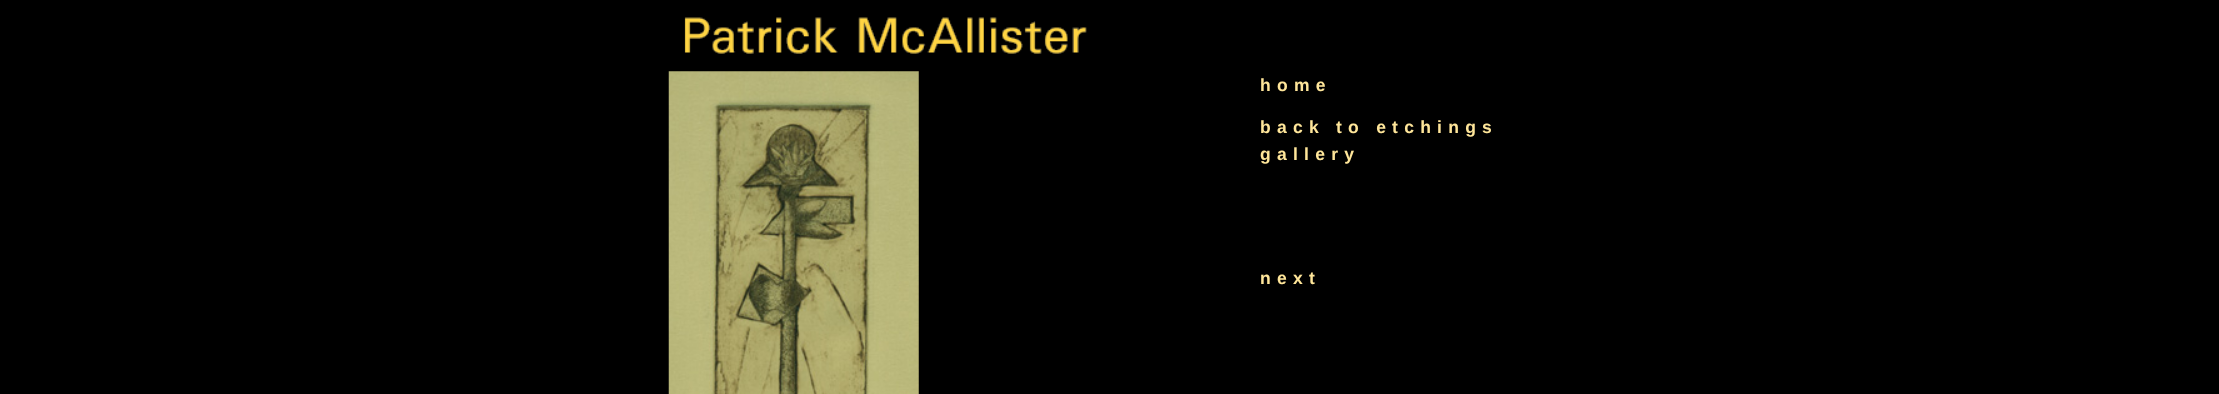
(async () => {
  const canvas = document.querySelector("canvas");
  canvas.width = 2219;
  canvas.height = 394;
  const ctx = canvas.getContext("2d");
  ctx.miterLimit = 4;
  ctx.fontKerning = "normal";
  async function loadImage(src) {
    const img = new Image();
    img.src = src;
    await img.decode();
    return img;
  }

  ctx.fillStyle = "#000000";
  ctx.fillRect(0, 0, 2219, 394);
  ctx.drawImage(await loadImage("img/1.png"), 684, 17, 403, 37);
  ctx.drawImage(await loadImage("img/2.png"), 668, 71, 251, 323);
  ctx.letterSpacing = "6.25px";
  ctx.font = "bold 17.5px Liberation Sans";
  ctx.fillStyle = "#ffe69a";
  for (const [text, x, y] of [
    ["home", 1260, 91],
    ["back to etchings", 1260, 133],
    ["gallery", 1260, 160],
    ["next", 1260, 284],
  ]) {
    ctx.fillText(text, x, y);
  }
})();
